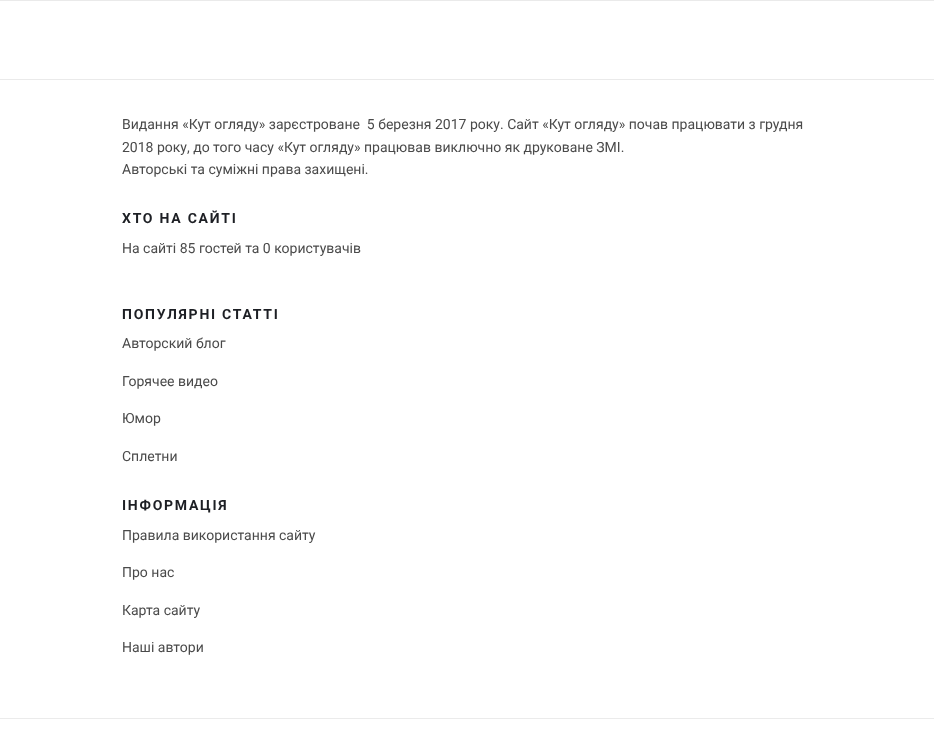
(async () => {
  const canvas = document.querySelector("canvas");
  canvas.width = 934;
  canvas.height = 732;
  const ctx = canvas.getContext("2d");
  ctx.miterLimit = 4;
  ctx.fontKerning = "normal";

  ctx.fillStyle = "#ffffff";
  ctx.fillRect(0, 0, 934, 732);
  for (const [x, y, w, h, color] of [
    [0, 0, 934, 1, "#eaeaea"],
    [0, 79, 934, 1, "#eaeaea"],
    [0, 718, 934, 1, "#ebebeb"],
  ]) {
    ctx.fillStyle = color;
    ctx.fillRect(x, y, w, h);
  }
  ctx.font = "14px Roboto";
  ctx.fillStyle = "#4a4a4a";
  for (const [text, x, y] of [
    ["Видання «Кут огляду» зарєстроване  5 березня 2017 року. Сайт «Кут огляду» почав працювати з грудня", 122, 129],
    ["2018 року, до того часу «Кут огляду» працював виключно як друковане ЗМІ.", 122, 152],
    ["Авторські та суміжні права захищені.", 122, 174],
  ]) {
    ctx.fillText(text, x, y);
  }
  ctx.letterSpacing = "1.75px";
  ctx.font = "bold 14px Roboto";
  ctx.fillStyle = "#1d1f24";
  ctx.fillText("ХТО НА САЙТІ", 122, 223);
  ctx.letterSpacing = "0px";
  ctx.font = "14px Roboto";
  ctx.fillStyle = "#4a4a4a";
  ctx.fillText("На сайті 85 гостей та 0 користувачів", 122, 253);
  ctx.letterSpacing = "1.75px";
  ctx.font = "bold 14px Roboto";
  ctx.fillStyle = "#1d1f24";
  ctx.fillText("ПОПУЛЯРНІ СТАТТІ", 122, 319);
  ctx.letterSpacing = "0px";
  ctx.font = "14px Roboto";
  ctx.fillStyle = "#4a4a4a";
  for (const [text, x, y] of [
    ["Авторский блог", 122, 348],
    ["Горячее видео", 122, 386],
    ["Юмор", 122, 423],
    ["Сплетни", 122, 461],
  ]) {
    ctx.fillText(text, x, y);
  }
  ctx.letterSpacing = "1.75px";
  ctx.font = "bold 14px Roboto";
  ctx.fillStyle = "#1d1f24";
  ctx.fillText("ІНФОРМАЦІЯ", 122, 510);
  ctx.letterSpacing = "0px";
  ctx.font = "14px Roboto";
  ctx.fillStyle = "#4a4a4a";
  for (const [text, x, y] of [
    ["Правила використання сайту", 122, 540],
    ["Про нас", 122, 577],
    ["Карта сайту", 122, 615],
    ["Наші автори", 122, 652],
  ]) {
    ctx.fillText(text, x, y);
  }
})();
